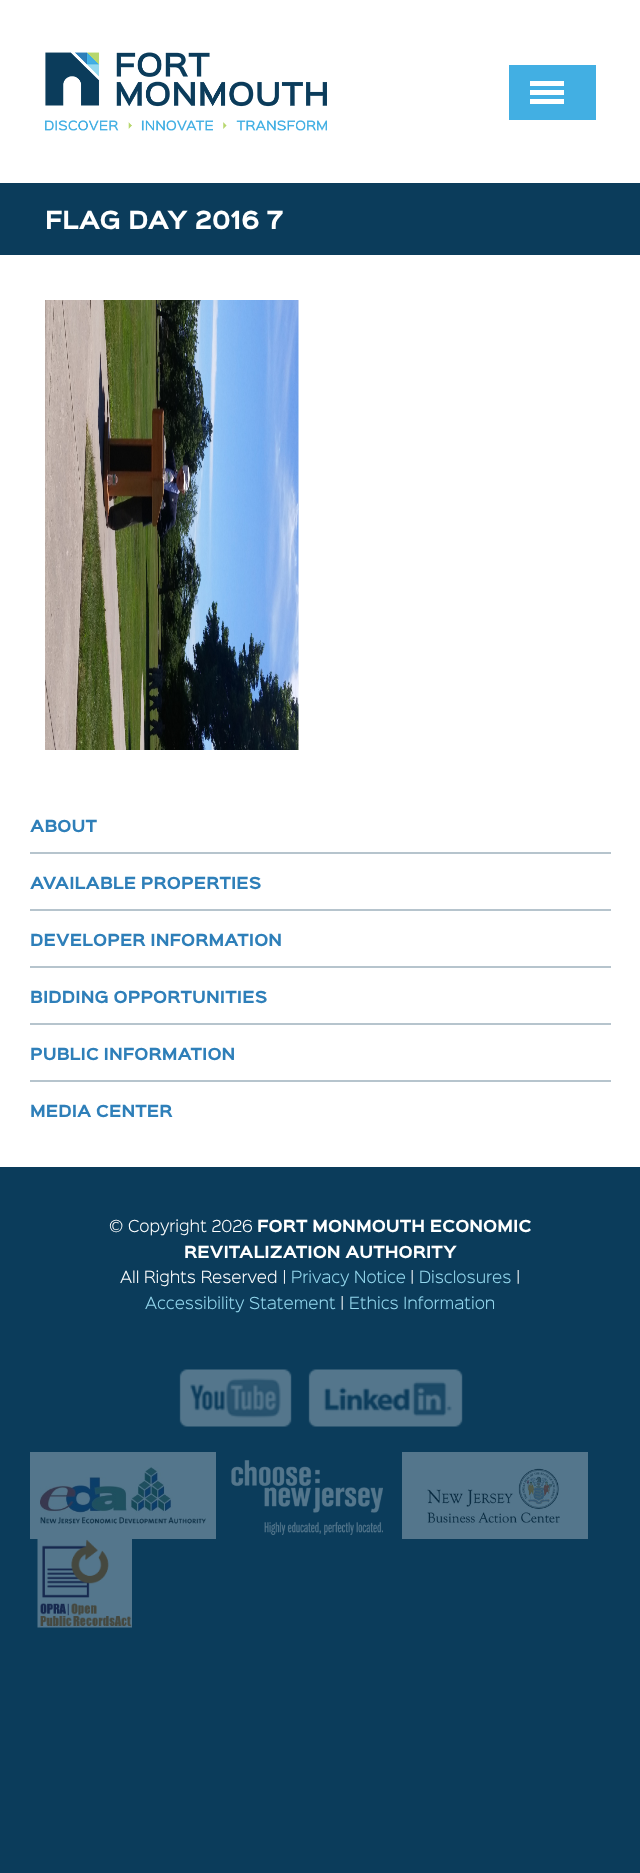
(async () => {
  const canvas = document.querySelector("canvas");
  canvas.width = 640;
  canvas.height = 1873;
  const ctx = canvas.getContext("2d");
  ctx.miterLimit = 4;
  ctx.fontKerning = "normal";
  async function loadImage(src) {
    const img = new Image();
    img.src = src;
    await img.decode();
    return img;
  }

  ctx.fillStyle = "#0b3c5b";
  ctx.fillRect(0, 0, 640, 1873);
  ctx.fillStyle = "#ffffff";
  ctx.fillRect(0, 0, 640, 183);
  ctx.drawImage(await loadImage("img/1.png"), 45, 52, 282, 79);
  for (const [x, y, w, h, color] of [
    [509, 65, 87, 55, "#42afe3"],
    [530, 81, 34, 5, "#ffffff"],
    [530, 90, 34, 5, "#ffffff"],
    [530, 99, 34, 5, "#ffffff"],
    [0, 255, 640, 912, "#ffffff"],
  ]) {
    ctx.fillStyle = color;
    ctx.fillRect(x, y, w, h);
  }
  ctx.drawImage(await loadImage("img/2.png"), 45, 300, 254, 450);
  for (const [x, y, w, h, color] of [
    [30, 852, 581, 2, "#b6c4cd"],
    [30, 909, 581, 2, "#b6c4cd"],
    [30, 966, 581, 2, "#b6c4cd"],
    [30, 1023, 581, 2, "#b6c4cd"],
    [30, 1080, 581, 2, "#b6c4cd"],
  ]) {
    ctx.fillStyle = color;
    ctx.fillRect(x, y, w, h);
  }
  ctx.drawImage(await loadImage("img/3.png"), 179, 1369, 113, 58);
  ctx.drawImage(await loadImage("img/4.png"), 308, 1369, 155, 58);
  ctx.drawImage(await loadImage("img/5.png"), 30, 1452, 186, 87);
  ctx.drawImage(await loadImage("img/6.png"), 231, 1460, 152, 75);
  ctx.drawImage(await loadImage("img/7.png"), 402, 1452, 186, 87);
  ctx.drawImage(await loadImage("img/8.png"), 37, 1539, 95, 89);
  ctx.font = "bold 22.5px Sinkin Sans";
  ctx.fillStyle = "#ffffff";
  ctx.fillText("FLAG DAY 2016 7", 45, 229);
  ctx.font = "bold 15px Sinkin Sans";
  ctx.fillStyle = "#2e7fb9";
  for (const [text, x, y] of [
    ["ABOUT", 30, 832],
    ["AVAILABLE PROPERTIES", 30, 889],
    ["DEVELOPER INFORMATION", 30, 946],
    ["BIDDING OPPORTUNITIES", 30, 1003],
    ["PUBLIC INFORMATION", 30, 1060],
    ["MEDIA CENTER", 30, 1117],
  ]) {
    ctx.fillText(text, x, y);
  }
  ctx.font = "300 15px Sinkin Sans";
  ctx.fillStyle = "#ffffff";
  ctx.fillText("© Copyright 2026", 109, 1232);
  ctx.font = "bold 15px Sinkin Sans";
  ctx.fillText("FORT MONMOUTH ECONOMIC", 257, 1232);
  ctx.fillText("REVITALIZATION AUTHORITY", 184, 1258);
  ctx.font = "300 15px Sinkin Sans";
  ctx.fillText("All Rights Reserved |", 120, 1283);
  ctx.fillStyle = "#94d8ee";
  ctx.fillText("Privacy Notice", 291, 1283);
  ctx.fillStyle = "#ffffff";
  ctx.fillText("|", 410, 1283);
  ctx.fillStyle = "#94d8ee";
  ctx.fillText("Disclosures", 419, 1283);
  ctx.fillStyle = "#ffffff";
  ctx.fillText("|", 516, 1283);
  ctx.fillStyle = "#94d8ee";
  ctx.fillText("Accessibility Statement", 145, 1309);
  ctx.fillStyle = "#ffffff";
  ctx.fillText("|", 340, 1309);
  ctx.fillStyle = "#94d8ee";
  ctx.fillText("Ethics Information", 349, 1309);
})();
